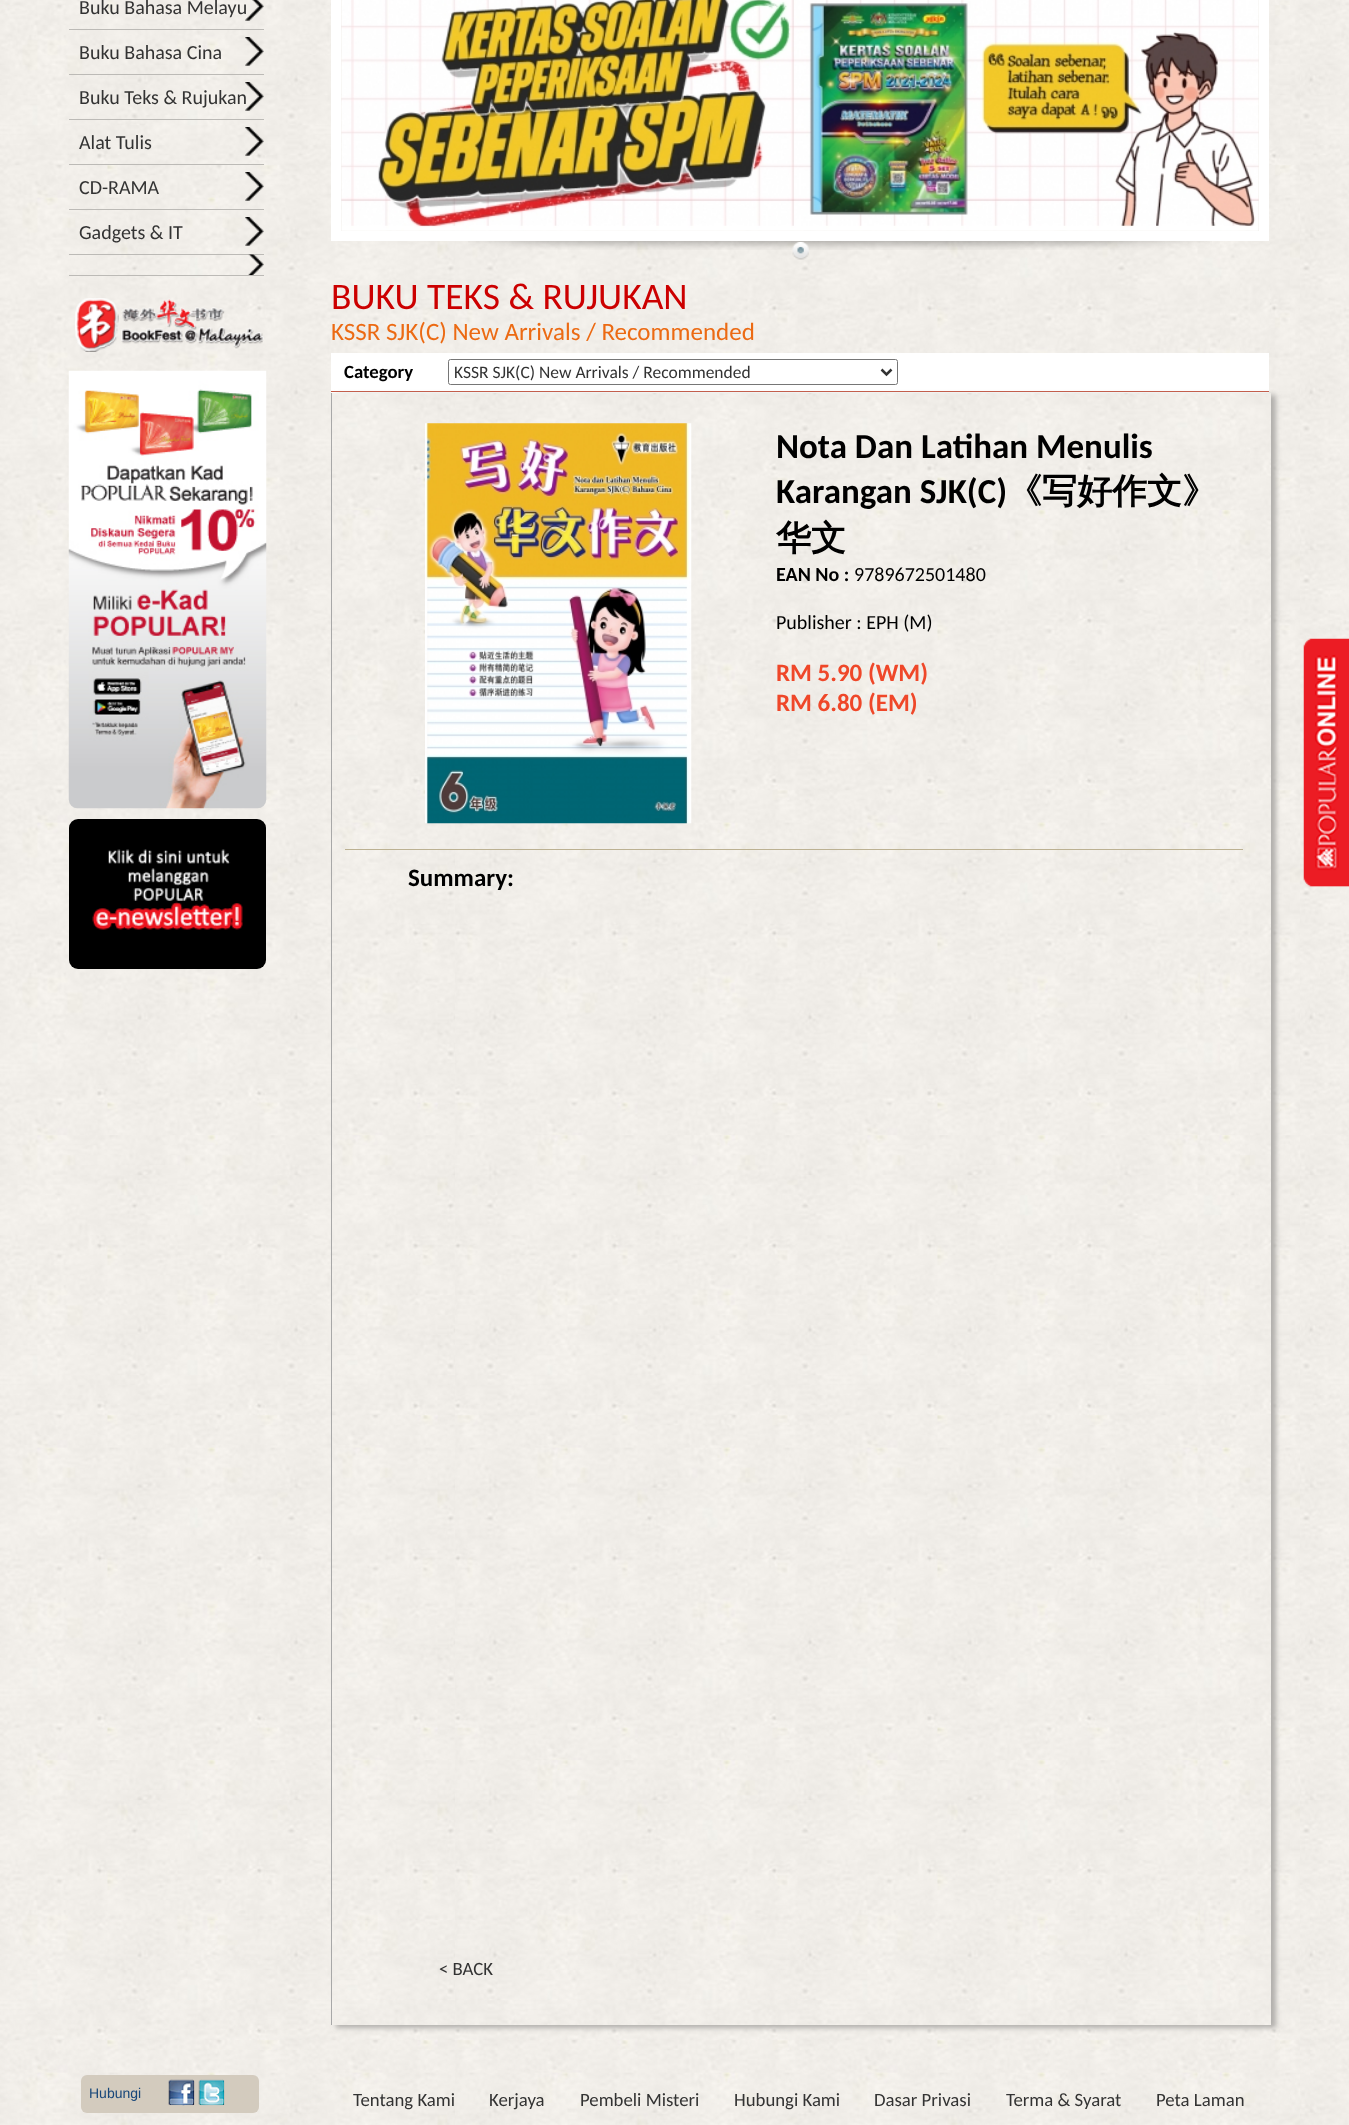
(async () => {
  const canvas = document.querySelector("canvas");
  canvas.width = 1349;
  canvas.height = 2125;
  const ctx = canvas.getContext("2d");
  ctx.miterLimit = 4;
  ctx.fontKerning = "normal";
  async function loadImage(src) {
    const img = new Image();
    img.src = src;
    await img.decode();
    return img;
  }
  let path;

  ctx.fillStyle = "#ffffff";
  ctx.fillRect(0, 0, 1349, 2125);
  ctx.drawImage(await loadImage("img/1.png"), 0, 0, 1349, 2125);
  ctx.drawImage(await loadImage("img/2.png"), 245, 0, 19, 21);
  ctx.fillStyle = "#bcbab6";
  ctx.fillRect(69, 29, 195, 1);
  ctx.drawImage(await loadImage("img/3.png"), 245, 37, 19, 29);
  ctx.fillRect(69, 74, 195, 1);
  ctx.drawImage(await loadImage("img/4.png"), 245, 82, 19, 29);
  ctx.fillRect(69, 119, 195, 1);
  ctx.drawImage(await loadImage("img/5.png"), 245, 127, 19, 29);
  ctx.fillRect(69, 164, 195, 1);
  ctx.drawImage(await loadImage("img/6.png"), 245, 172, 19, 29);
  ctx.fillRect(69, 209, 195, 1);
  ctx.drawImage(await loadImage("img/7.png"), 245, 217, 19, 29);
  ctx.fillRect(69, 254, 195, 1);
  ctx.drawImage(await loadImage("img/8.png"), 248, 254, 16, 21);
  ctx.fillRect(69, 275, 195, 1);
  ctx.drawImage(await loadImage("img/9.png"), 75, 298, 189, 54);
  ctx.drawImage(await loadImage("img/10.png"), 68, 370, 199, 439);
  ctx.fillStyle = "#000000";
  ctx.beginPath();
  ctx.roundRect(69, 819, 197, 150, 9);
  ctx.fill();
  ctx.drawImage(await loadImage("img/11.png"), 92, 849, 151, 81);
  ctx.drawImage(await loadImage("img/12.png"), 468, 241, 744, 9);
  ctx.strokeStyle = "#ffffff";
  ctx.lineWidth = 10;
  ctx.strokeRect(336, -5, 928, 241);
  ctx.drawImage(await loadImage("img/13.png"), 341, 0, 918, 231);
  ctx.drawImage(await loadImage("img/14.png"), 792, 242, 17, 18);
  ctx.fillStyle = "#ffffff";
  ctx.fillRect(331, 353, 938, 40);
  ctx.fillStyle = "#c55844";
  ctx.fillRect(331, 391, 938, 1);
  ctx.beginPath();
  ctx.roundRect(448.5, 359.5, 449, 25, 2);
  ctx.strokeStyle = "#767676";
  ctx.lineWidth = 1;
  ctx.stroke();
  path = new Path2D("M881.5 369.5L886.5 374.5L891.5 369.5");
  ctx.strokeStyle = "#333333";
  ctx.lineWidth = 2.5;
  ctx.stroke(path);
  ctx.save();
  path = new Path2D("M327 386H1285V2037H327ZM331 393H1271V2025H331Z");
  ctx.clip(path, "evenodd");
  ctx.fillStyle = "#b2b0ad";
  ctx.filter = "blur(2.5px)";
  ctx.beginPath();
  ctx.rect(336, 395, 940, 1633);
  ctx.fill();
  ctx.filter = "none";
  ctx.restore();
  ctx.fillStyle = "#a8a8a8";
  ctx.fillRect(331, 393, 1, 1632);
  ctx.drawImage(await loadImage("img/15.png"), 425, 423, 267, 401);
  ctx.fillStyle = "#bcb192";
  ctx.fillRect(345, 849, 898, 1);
  ctx.drawImage(await loadImage("img/16.png"), 1303, 638, 46, 249);
  ctx.fillStyle = "#d3cbbe";
  ctx.beginPath();
  ctx.roundRect(81, 2075, 178, 38, 6);
  ctx.fill();
  ctx.drawImage(await loadImage("img/17.png"), 168, 2079, 27, 27);
  ctx.drawImage(await loadImage("img/18.png"), 198, 2079, 27, 27);
  ctx.font = "20px Carlito";
  ctx.fillStyle = "#333333";
  for (const [text, x, y] of [
    ["Buku Bahasa Melayu", 79, 14],
    ["Buku Bahasa Cina", 79, 59],
    ["Buku Teks & Rujukan", 79, 104],
    ["Alat Tulis", 79, 149],
    ["CD-RAMA", 79, 194],
    ["Gadgets & IT", 79, 239],
  ]) {
    ctx.fillText(text, x, y);
  }
  ctx.font = "37.5px Carlito";
  ctx.fillStyle = "#cc0000";
  ctx.fillText("BUKU TEKS & RUJUKAN", 331, 309);
  ctx.font = "25px Carlito";
  ctx.fillStyle = "#ec6a13";
  ctx.fillText("KSSR SJK(C) New Arrivals / Recommended", 331, 340);
  ctx.font = "bold 18.75px Carlito";
  ctx.fillStyle = "#000000";
  ctx.fillText("Category", 344, 378);
  ctx.font = "17.5px Carlito";
  ctx.fillStyle = "#333333";
  ctx.fillText("KSSR SJK(C) New Arrivals / Recommended", 454, 378);
  ctx.font = "bold 35px Carlito";
  ctx.fillStyle = "#000000";
  ctx.fillText("Nota Dan Latihan Menulis", 776, 458);
  ctx.fillText("Karangan SJK(C)", 776, 503);
  ctx.font = "bold 35px WenQuanYi Zen Hei";
  ctx.fillText("《写好作文》", 1007, 503);
  ctx.fillText("华文", 776, 550);
  ctx.font = "bold 20px Carlito";
  ctx.fillText("EAN No :", 776, 581);
  ctx.font = "20px Carlito";
  ctx.fillText("9789672501480", 854, 581);
  ctx.fillText("Publisher : EPH (M)", 776, 629);
  ctx.font = "bold 25px Carlito";
  ctx.fillStyle = "#ef4729";
  ctx.fillText("RM 5.90 (WM)", 776, 681);
  ctx.fillText("RM 6.80 (EM)", 776, 711);
  ctx.fillStyle = "#000000";
  ctx.fillText("Summary:", 408, 886);
  ctx.font = "18.75px Carlito";
  ctx.fillStyle = "#333333";
  ctx.fillText("< BACK", 439, 1975);
  ctx.font = "14px Liberation Sans";
  ctx.fillStyle = "#174679";
  ctx.fillText("Hubungi", 89, 2098);
  ctx.font = "18.75px Carlito";
  ctx.fillStyle = "#333333";
  for (const [text, x, y] of [
    ["Tentang Kami", 353, 2106],
    ["Kerjaya", 489, 2106],
    ["Pembeli Misteri", 580, 2106],
    ["Hubungi Kami", 734, 2106],
    ["Dasar Privasi", 874, 2106],
    ["Terma & Syarat", 1006, 2106],
    ["Peta Laman", 1156, 2106],
  ]) {
    ctx.fillText(text, x, y);
  }
})();
